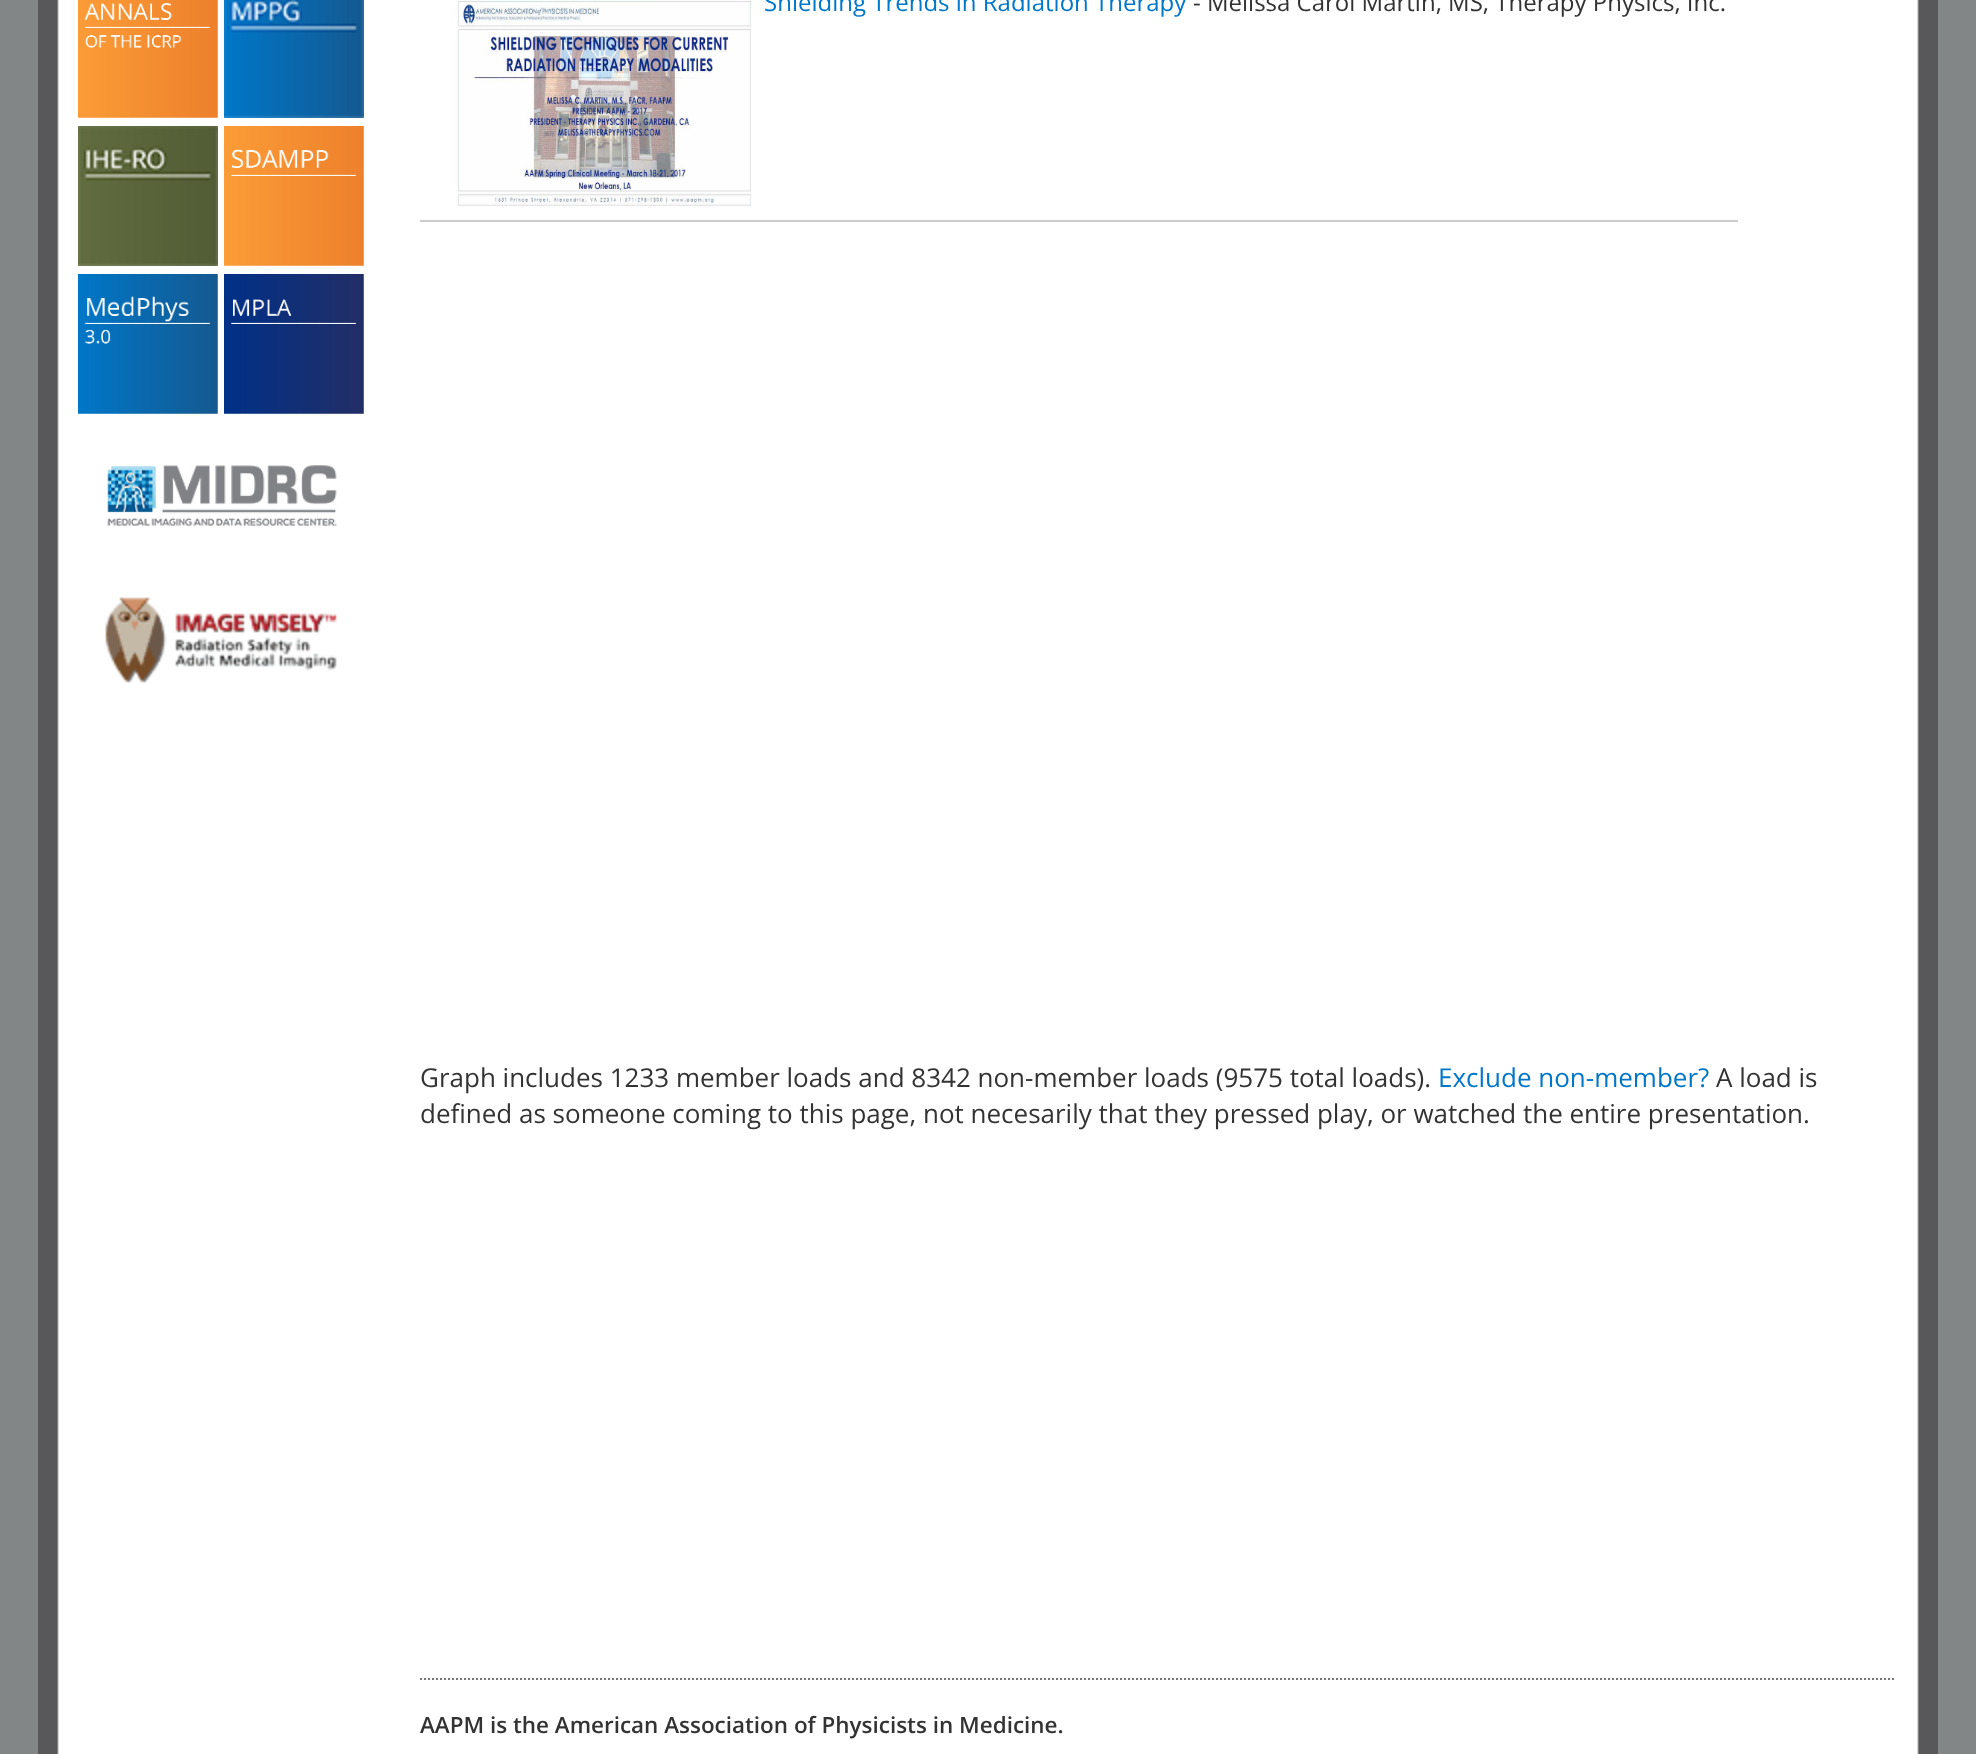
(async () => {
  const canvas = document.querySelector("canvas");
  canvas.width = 1976;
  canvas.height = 1754;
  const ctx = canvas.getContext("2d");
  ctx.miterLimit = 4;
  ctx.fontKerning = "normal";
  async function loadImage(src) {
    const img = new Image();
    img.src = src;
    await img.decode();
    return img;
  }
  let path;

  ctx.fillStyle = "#828686";
  ctx.fillRect(0, 0, 1976, 1754);
  ctx.drawImage(await loadImage("img/1.png"), 38, 0, 1900, 1754);
  ctx.drawImage(await loadImage("img/2.png"), 78, 0, 140, 118);
  ctx.drawImage(await loadImage("img/3.png"), 224, 0, 140, 118);
  ctx.drawImage(await loadImage("img/4.png"), 78, 126, 140, 140);
  ctx.drawImage(await loadImage("img/5.png"), 224, 126, 140, 140);
  ctx.drawImage(await loadImage("img/6.png"), 78, 274, 140, 140);
  ctx.drawImage(await loadImage("img/7.png"), 224, 274, 140, 140);
  ctx.drawImage(await loadImage("img/8.png"), 107, 465, 230, 61);
  ctx.drawImage(await loadImage("img/9.png"), 105, 597, 232, 86);
  ctx.fillStyle = "#cccccc";
  ctx.fillRect(420, 220, 1318, 2);
  ctx.drawImage(await loadImage("img/10.png"), 456, 0, 295, 207);
  path = new Path2D("M420 1679H1896");
  ctx.strokeStyle = "#777777";
  ctx.lineWidth = 2;
  ctx.setLineDash([2, 2]);
  ctx.stroke(path);
  ctx.font = "24px Open Sans";
  ctx.fillStyle = "#0077c8";
  ctx.fillText("Shielding Trends in Radiation Therapy", 764, 11);
  ctx.fillStyle = "#333333";
  ctx.fillText("- Melissa Carol Martin, MS, Therapy Physics, Inc.", 1193, 11);
  ctx.font = "26px Open Sans";
  ctx.fillText("Graph includes 1233 member loads and 8342 non-member loads (9575 total loads).", 420, 1087);
  ctx.fillStyle = "#0077c8";
  ctx.fillText("Exclude non-member?", 1438, 1087);
  ctx.fillStyle = "#333333";
  ctx.fillText("A load is", 1716, 1087);
  ctx.fillText("defined as someone coming to this page, not necesarily that they pressed play, or watched the entire presentation.", 420, 1123);
  ctx.font = "600 22.45px Open Sans";
  ctx.fillText("AAPM is the American Association of Physicists in Medicine.", 420, 1733);
})();
